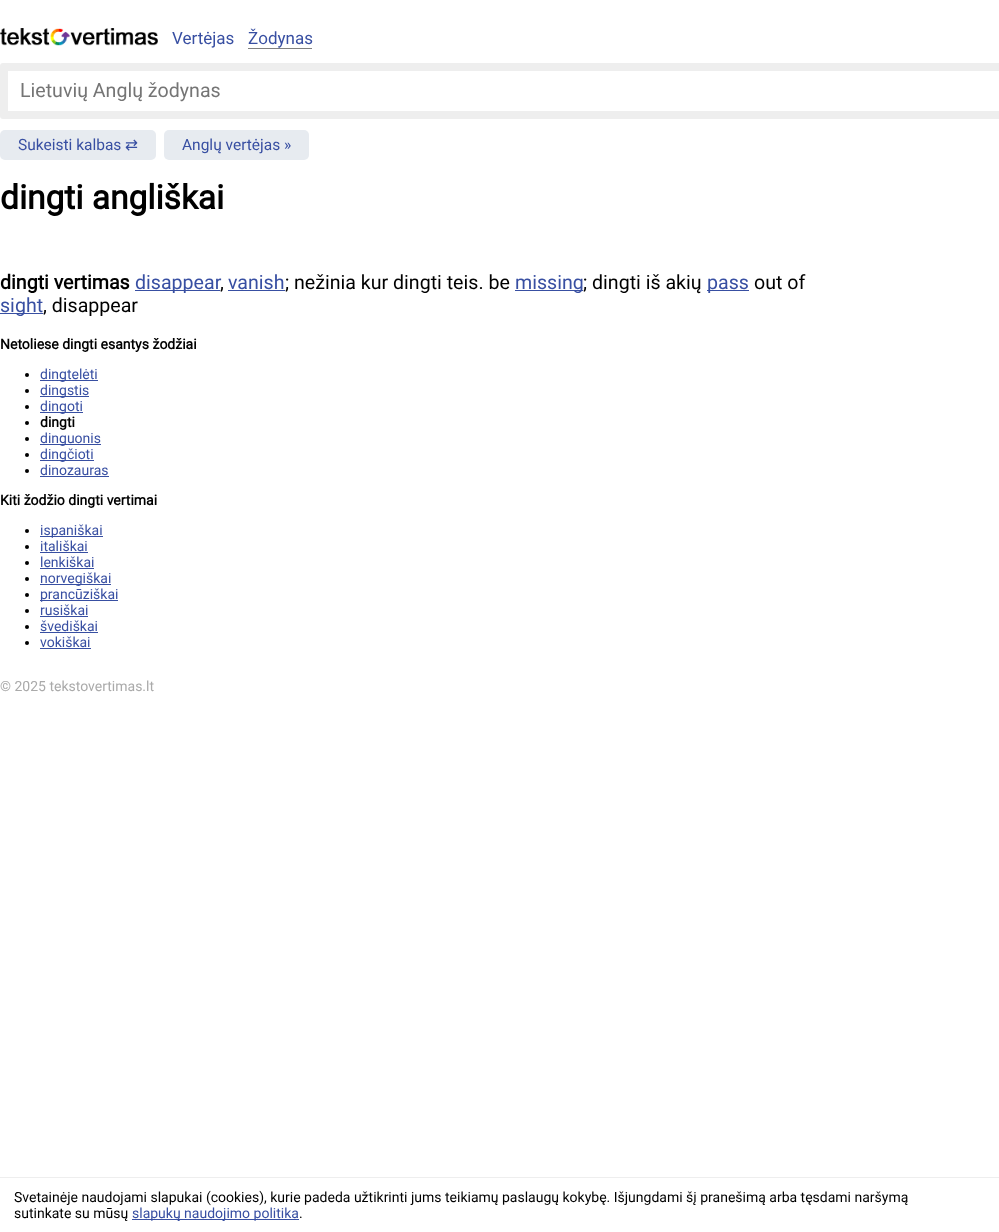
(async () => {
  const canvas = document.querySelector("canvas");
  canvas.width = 999;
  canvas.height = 1232;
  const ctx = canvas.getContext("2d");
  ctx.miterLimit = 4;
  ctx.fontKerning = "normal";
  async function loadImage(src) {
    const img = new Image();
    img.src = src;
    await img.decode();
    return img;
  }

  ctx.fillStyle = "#ffffff";
  ctx.fillRect(0, 0, 999, 1232);
  ctx.drawImage(await loadImage("img/1.png"), 0, 28, 158, 18);
  ctx.fillStyle = "#808080";
  ctx.fillRect(248, 48, 64, 1);
  ctx.fillStyle = "#eeeeee";
  ctx.beginPath();
  ctx.roundRect(0, 63, 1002, 56, 3);
  ctx.fill();
  ctx.fillStyle = "#ffffff";
  ctx.fillRect(8, 71, 991, 40);
  ctx.fillStyle = "#e7ebf0";
  ctx.beginPath();
  ctx.roundRect(0, 130, 121, 30, [5, 0, 0, 5]);
  ctx.fill();
  ctx.beginPath();
  ctx.roundRect(121, 130, 35, 30, [0, 5, 5, 0]);
  ctx.fill();
  ctx.beginPath();
  ctx.roundRect(164, 130, 116, 30, [5, 0, 0, 5]);
  ctx.fill();
  ctx.beginPath();
  ctx.roundRect(280, 130, 29, 30, [0, 5, 5, 0]);
  ctx.fill();
  for (const [x, y, w, h, color] of [
    [135, 290, 85, 1, "#384fa2"],
    [228, 290, 57, 1, "#384fa2"],
    [515, 290, 68, 1, "#384fa2"],
    [707, 290, 42, 1, "#384fa2"],
    [0, 313, 43, 1, "#384fa2"],
  ]) {
    ctx.fillStyle = color;
    ctx.fillRect(x, y, w, h);
  }
  ctx.fillStyle = "#000000";
  ctx.beginPath();
  ctx.arc(27, 375, 2, 0, Math.PI * 2);
  ctx.fill();
  ctx.fillStyle = "#384fa2";
  ctx.fillRect(40, 380, 58, 1);
  ctx.fillStyle = "#000000";
  ctx.beginPath();
  ctx.arc(27, 391, 2, 0, Math.PI * 2);
  ctx.fill();
  ctx.fillStyle = "#384fa2";
  ctx.fillRect(40, 396, 49, 1);
  ctx.fillStyle = "#000000";
  ctx.beginPath();
  ctx.arc(27, 407, 2, 0, Math.PI * 2);
  ctx.fill();
  ctx.fillStyle = "#384fa2";
  ctx.fillRect(40, 412, 43, 1);
  ctx.fillStyle = "#000000";
  ctx.beginPath();
  ctx.arc(27, 423, 2, 0, Math.PI * 2);
  ctx.fill();
  ctx.beginPath();
  ctx.arc(27, 439, 2, 0, Math.PI * 2);
  ctx.fill();
  ctx.fillStyle = "#384fa2";
  ctx.fillRect(40, 444, 61, 1);
  ctx.fillStyle = "#000000";
  ctx.beginPath();
  ctx.arc(27, 455, 2, 0, Math.PI * 2);
  ctx.fill();
  ctx.fillStyle = "#384fa2";
  ctx.fillRect(40, 460, 54, 1);
  ctx.fillStyle = "#000000";
  ctx.beginPath();
  ctx.arc(27, 471, 2, 0, Math.PI * 2);
  ctx.fill();
  ctx.fillStyle = "#384fa2";
  ctx.fillRect(40, 476, 69, 1);
  ctx.fillStyle = "#000000";
  ctx.beginPath();
  ctx.arc(27, 531, 2, 0, Math.PI * 2);
  ctx.fill();
  ctx.fillStyle = "#384fa2";
  ctx.fillRect(40, 536, 63, 1);
  ctx.fillStyle = "#000000";
  ctx.beginPath();
  ctx.arc(27, 547, 2, 0, Math.PI * 2);
  ctx.fill();
  ctx.fillStyle = "#384fa2";
  ctx.fillRect(40, 552, 48, 1);
  ctx.fillStyle = "#000000";
  ctx.beginPath();
  ctx.arc(27, 563, 2, 0, Math.PI * 2);
  ctx.fill();
  ctx.fillStyle = "#384fa2";
  ctx.fillRect(40, 568, 54, 1);
  ctx.fillStyle = "#000000";
  ctx.beginPath();
  ctx.arc(27, 579, 2, 0, Math.PI * 2);
  ctx.fill();
  ctx.fillStyle = "#384fa2";
  ctx.fillRect(40, 584, 71, 1);
  ctx.fillStyle = "#000000";
  ctx.beginPath();
  ctx.arc(27, 595, 2, 0, Math.PI * 2);
  ctx.fill();
  ctx.fillStyle = "#384fa2";
  ctx.fillRect(40, 600, 78, 1);
  ctx.fillStyle = "#000000";
  ctx.beginPath();
  ctx.arc(27, 611, 2, 0, Math.PI * 2);
  ctx.fill();
  ctx.fillStyle = "#384fa2";
  ctx.fillRect(40, 616, 48, 1);
  ctx.fillStyle = "#000000";
  ctx.beginPath();
  ctx.arc(27, 627, 2, 0, Math.PI * 2);
  ctx.fill();
  ctx.fillStyle = "#384fa2";
  ctx.fillRect(40, 632, 58, 1);
  ctx.fillStyle = "#000000";
  ctx.beginPath();
  ctx.arc(27, 643, 2, 0, Math.PI * 2);
  ctx.fill();
  for (const [x, y, w, h, color] of [
    [40, 648, 51, 1, "#384fa2"],
    [0, 1177, 999, 1, "#eeeeee"],
    [132, 1219, 167, 1, "#384fa2"],
  ]) {
    ctx.fillStyle = color;
    ctx.fillRect(x, y, w, h);
  }
  ctx.font = "17px Roboto";
  ctx.fillText("Vertėjas", 172, 44);
  ctx.fillText("Žodynas", 248, 44);
  ctx.font = "19.6px Roboto";
  ctx.fillStyle = "#757575";
  ctx.fillText("Lietuvių Anglų žodynas", 20, 97);
  ctx.font = "15.5px Roboto";
  ctx.fillStyle = "#384fa2";
  ctx.fillText("Sukeisti kalbas", 18, 150);
  ctx.font = "15.5px DejaVu Sans";
  ctx.fillText("⇄", 125, 150);
  ctx.font = "15.5px Roboto";
  ctx.fillText("Anglų vertėjas »", 182, 150);
  ctx.font = "bold 33.5px Roboto";
  ctx.fillStyle = "#000000";
  ctx.fillText("dingti angliškai", 0, 209);
  ctx.font = "bold 19.6px Roboto";
  ctx.fillText("dingti vertimas", 0, 289);
  ctx.font = "19.6px Roboto";
  ctx.fillStyle = "#384fa2";
  ctx.fillText("disappear", 135, 289);
  ctx.fillText("vanish", 228, 289);
  ctx.fillStyle = "#000000";
  ctx.fillText("; nežinia kur dingti teis. be", 285, 289);
  ctx.fillStyle = "#384fa2";
  ctx.fillText("missing", 515, 289);
  ctx.fillStyle = "#000000";
  ctx.fillText("; dingti iš akių", 583, 289);
  ctx.fillStyle = "#384fa2";
  ctx.fillText("pass", 707, 289);
  ctx.fillStyle = "#000000";
  ctx.fillText("out of", 754, 289);
  ctx.fillText(",", 220, 289);
  ctx.fillStyle = "#384fa2";
  ctx.fillText("sight", 0, 312);
  ctx.fillStyle = "#000000";
  ctx.fillText(", disappear", 43, 312);
  ctx.font = "bold 14px Roboto";
  ctx.fillText("Netoliese dingti esantys žodžiai", 0, 349);
  ctx.font = "14px Roboto";
  ctx.fillStyle = "#384fa2";
  for (const [text, x, y] of [
    ["dingtelėti", 40, 379],
    ["dingstis", 40, 395],
    ["dingoti", 40, 411],
  ]) {
    ctx.fillText(text, x, y);
  }
  ctx.font = "bold 14px Roboto";
  ctx.fillStyle = "#000000";
  ctx.fillText("dingti", 40, 427);
  ctx.font = "14px Roboto";
  ctx.fillStyle = "#384fa2";
  for (const [text, x, y] of [
    ["dinguonis", 40, 443],
    ["dingčioti", 40, 459],
    ["dinozauras", 40, 475],
  ]) {
    ctx.fillText(text, x, y);
  }
  ctx.font = "bold 14px Roboto";
  ctx.fillStyle = "#000000";
  ctx.fillText("Kiti žodžio dingti vertimai", 0, 505);
  ctx.font = "14px Roboto";
  ctx.fillStyle = "#384fa2";
  for (const [text, x, y] of [
    ["ispaniškai", 40, 535],
    ["itališkai", 40, 551],
    ["lenkiškai", 40, 567],
    ["norvegiškai", 40, 583],
    ["prancūziškai", 40, 599],
    ["rusiškai", 40, 615],
    ["švediškai", 40, 631],
    ["vokiškai", 40, 647],
  ]) {
    ctx.fillText(text, x, y);
  }
  ctx.fillStyle = "#aaaaaa";
  ctx.fillText("© 2025 tekstovertimas.lt", 0, 691);
  ctx.fillStyle = "#000000";
  ctx.fillText("Svetainėje naudojami slapukai (cookies), kurie padeda užtikrinti jums teikiamų paslaugų kokybę. Išjungdami šį pranešimą arba tęsdami naršymą", 14, 1202);
  ctx.fillText("sutinkate su mūsų", 14, 1218);
  ctx.fillStyle = "#384fa2";
  ctx.fillText("slapukų naudojimo politika", 132, 1218);
  ctx.fillStyle = "#000000";
  ctx.fillText(".", 299, 1218);
})();
